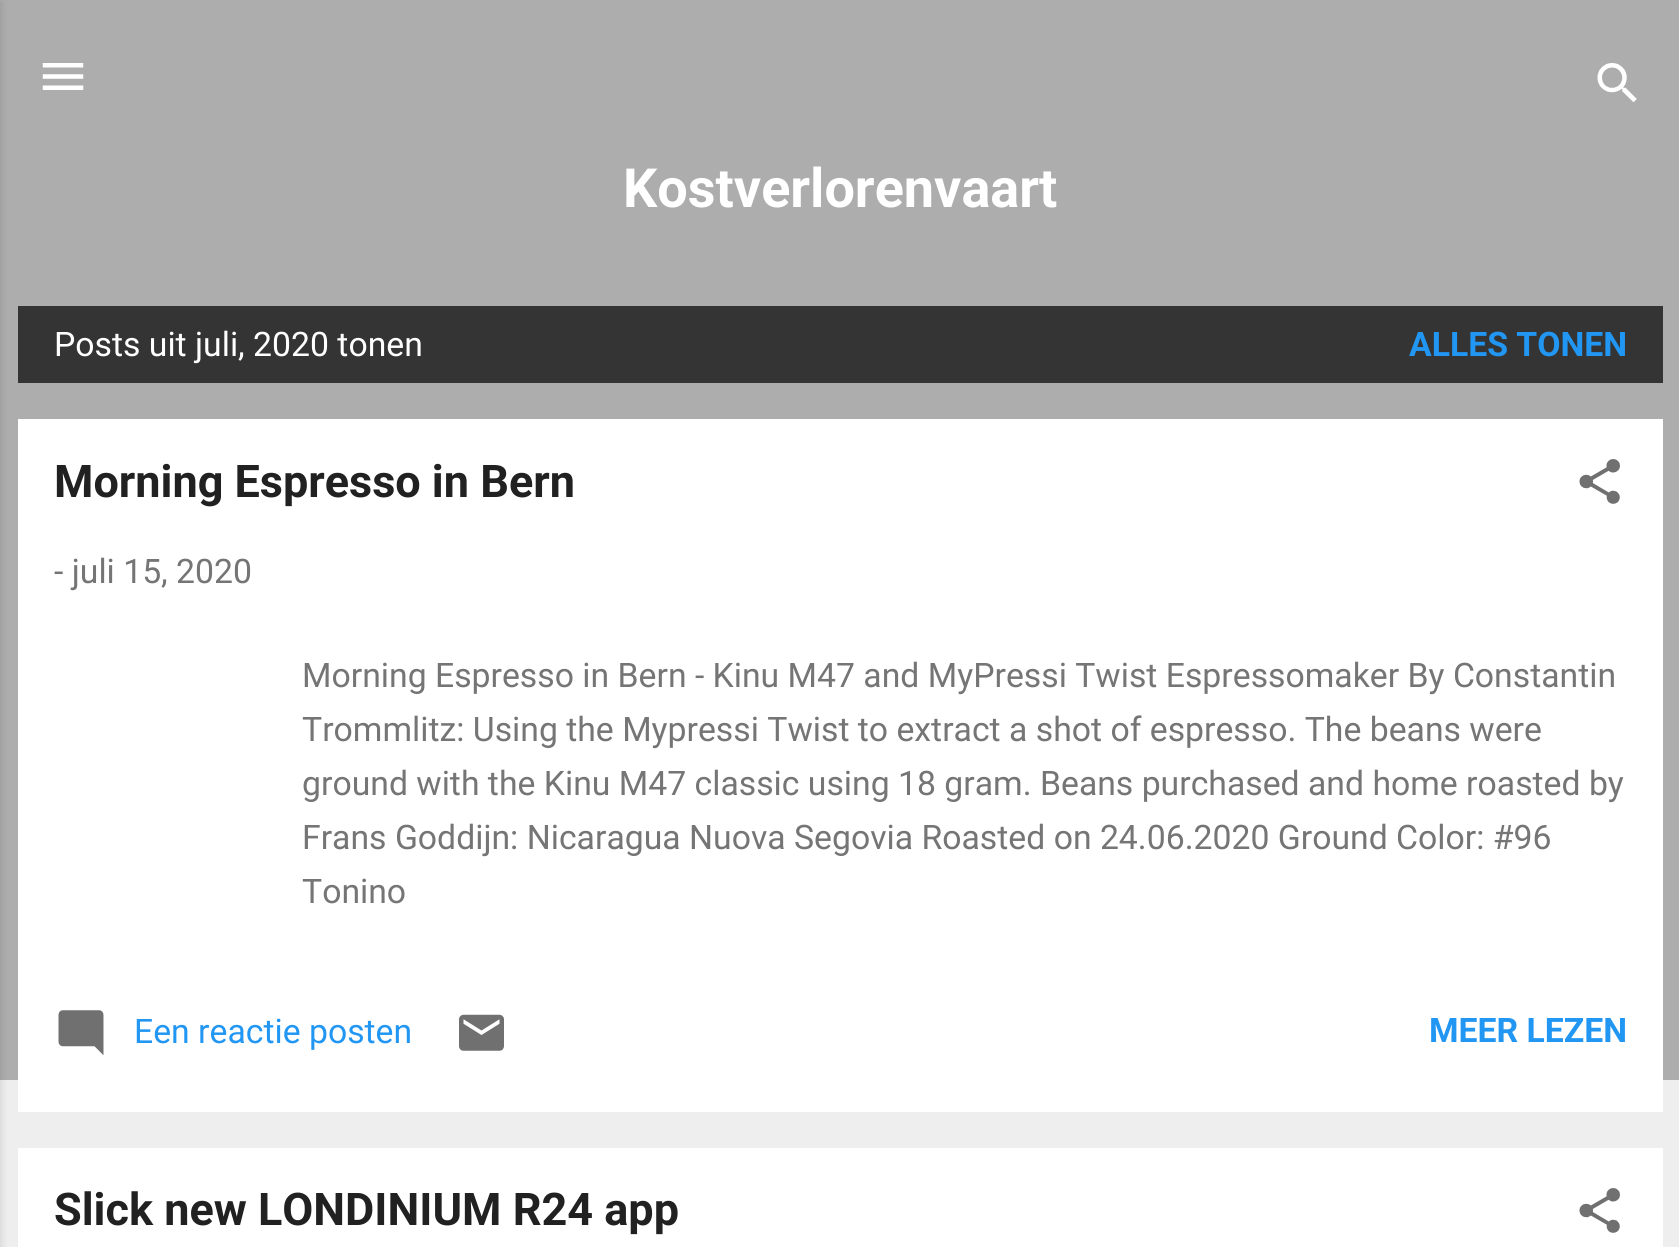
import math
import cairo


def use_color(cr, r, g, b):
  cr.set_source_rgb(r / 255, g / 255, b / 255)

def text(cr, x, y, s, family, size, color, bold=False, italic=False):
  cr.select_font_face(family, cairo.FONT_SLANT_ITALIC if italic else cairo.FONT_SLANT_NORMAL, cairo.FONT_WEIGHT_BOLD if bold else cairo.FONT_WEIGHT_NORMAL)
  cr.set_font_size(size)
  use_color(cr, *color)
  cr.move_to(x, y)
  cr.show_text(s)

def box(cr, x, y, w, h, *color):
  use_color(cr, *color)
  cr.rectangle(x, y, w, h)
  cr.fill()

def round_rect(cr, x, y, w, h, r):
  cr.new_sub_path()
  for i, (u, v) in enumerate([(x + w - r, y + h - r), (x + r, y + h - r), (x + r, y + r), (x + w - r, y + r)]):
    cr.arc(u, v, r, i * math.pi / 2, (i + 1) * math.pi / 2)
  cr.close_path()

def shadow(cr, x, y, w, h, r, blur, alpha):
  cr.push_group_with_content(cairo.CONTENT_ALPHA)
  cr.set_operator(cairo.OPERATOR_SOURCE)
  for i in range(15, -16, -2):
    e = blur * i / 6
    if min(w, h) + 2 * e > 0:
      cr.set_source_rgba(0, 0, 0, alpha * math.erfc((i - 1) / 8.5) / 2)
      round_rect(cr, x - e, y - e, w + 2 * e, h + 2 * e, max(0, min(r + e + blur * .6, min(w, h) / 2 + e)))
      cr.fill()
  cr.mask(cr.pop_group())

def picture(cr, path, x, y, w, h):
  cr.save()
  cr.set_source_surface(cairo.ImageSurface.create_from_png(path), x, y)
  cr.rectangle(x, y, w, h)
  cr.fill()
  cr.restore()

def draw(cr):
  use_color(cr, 238, 238, 238)
  cr.paint()
  box(cr, 0, 0, 1679, 1080, 173, 173, 173)
  use_color(cr, 0, 0, 0)
  shadow(cr, -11, 2, 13, 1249, 0, 3.5, 0.1)
  picture(cr, "img_01.png", 42, 63, 42, 27)
  picture(cr, "img_02.png", 1597, 63, 40, 40)
  box(cr, 18, 306, 1645, 77, 52, 52, 52)
  box(cr, 18, 419, 1645, 693, 255, 255, 255)
  picture(cr, "img_03.png", 1579, 459, 41, 45)
  picture(cr, "img_04.png", 58, 1010, 46, 45)
  picture(cr, "img_05.png", 459, 1014, 45, 37)
  box(cr, 18, 1148, 1645, 99, 255, 255, 255)
  picture(cr, "img_03.png", 1579, 1188, 41, 45)
  text(cr, 623, 207, "Kostverlorenvaart", "Roboto", 54, (255, 255, 255), bold=True)
  text(cr, 54, 356, "Posts uit juli, 2020 tonen", "Roboto", 33.75, (255, 255, 255))
  text(cr, 1409, 356, "ALLES TONEN", "Roboto", 33.75, (33, 150, 243), bold=True)
  text(cr, 54, 497, "Morning Espresso in Bern", "Roboto", 45, (33, 33, 33), bold=True)
  text(cr, 54, 583, "- juli 15, 2020", "Roboto", 33.75, (117, 117, 117))
  text(cr, 302, 687, "Morning Espresso in Bern - Kinu M47 and MyPressi Twist Espressomaker By Constantin", "Roboto", 33.75, (117, 117, 117))
  text(cr, 302, 741, "Trommlitz: Using the Mypressi Twist to extract a shot of espresso. The beans were", "Roboto", 33.75, (117, 117, 117))
  text(cr, 302, 795, "ground with the Kinu M47 classic using 18 gram. Beans purchased and home roasted by", "Roboto", 33.75, (117, 117, 117))
  text(cr, 302, 849, "Frans Goddijn: Nicaragua Nuova Segovia Roasted on 24.06.2020 Ground Color: #96", "Roboto", 33.75, (117, 117, 117))
  text(cr, 302, 903, "Tonino", "Roboto", 33.75, (117, 117, 117))
  text(cr, 134, 1043, "Een reactie posten", "Roboto", 33.75, (33, 150, 243))
  text(cr, 1429, 1042, "MEER LEZEN", "Roboto", 33.75, (33, 150, 243), bold=True)
  text(cr, 54, 1225, "Slick new LONDINIUM R24 app", "Roboto", 45, (33, 33, 33), bold=True)


surface = cairo.ImageSurface(cairo.FORMAT_RGB24, 1679, 1247)
cr = cairo.Context(surface)
options = cairo.FontOptions()
options.set_hint_metrics(cairo.HINT_METRICS_OFF)
options.set_hint_style(cairo.HINT_STYLE_NONE)
cr.set_font_options(options)
cr.set_miter_limit(4)
draw(cr)
surface.write_to_png("out.png")
